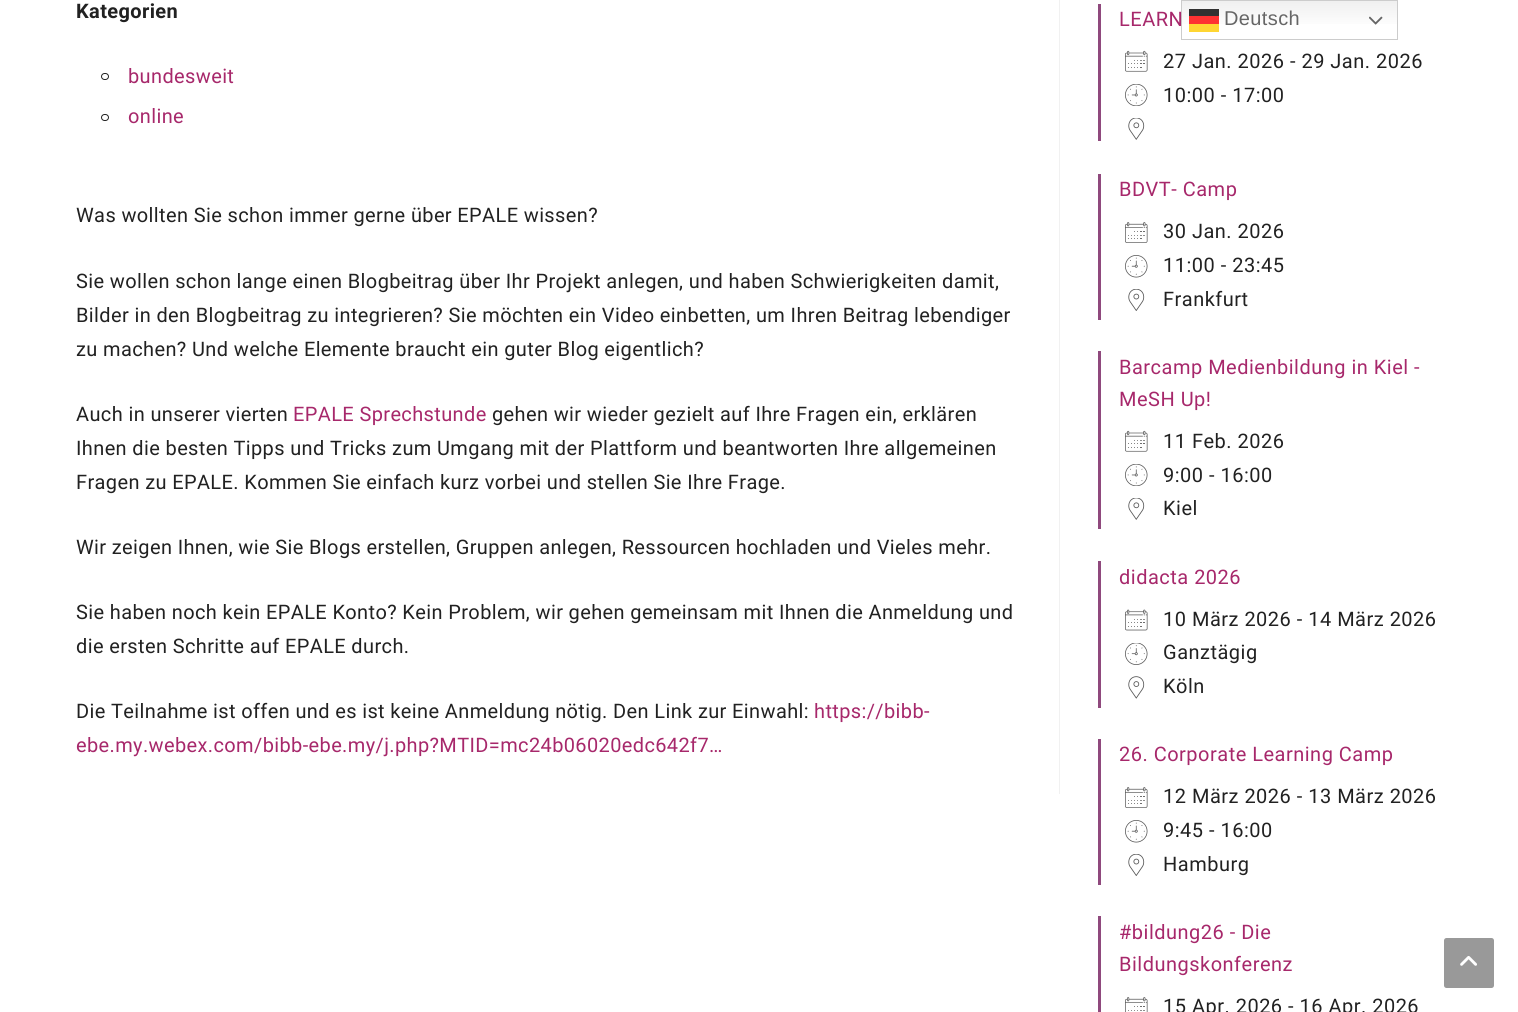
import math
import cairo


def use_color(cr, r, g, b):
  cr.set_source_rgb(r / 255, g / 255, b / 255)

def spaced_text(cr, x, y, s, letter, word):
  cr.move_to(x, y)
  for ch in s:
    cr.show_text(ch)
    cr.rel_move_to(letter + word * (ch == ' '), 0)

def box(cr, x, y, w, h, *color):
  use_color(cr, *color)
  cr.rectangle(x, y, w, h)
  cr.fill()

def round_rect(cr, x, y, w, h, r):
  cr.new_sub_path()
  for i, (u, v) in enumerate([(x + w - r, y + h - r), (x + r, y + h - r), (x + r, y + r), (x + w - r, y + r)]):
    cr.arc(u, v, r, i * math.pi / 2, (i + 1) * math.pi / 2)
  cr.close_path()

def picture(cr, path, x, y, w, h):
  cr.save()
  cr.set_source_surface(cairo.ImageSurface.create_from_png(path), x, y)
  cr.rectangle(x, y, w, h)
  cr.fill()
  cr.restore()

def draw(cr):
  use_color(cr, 255, 255, 255)
  cr.paint()
  box(cr, 1059, 0, 1, 794, 241, 241, 241)
  round_rect(cr, 101.5, 73.5, 7, 6, 3)
  use_color(cr, 33, 33, 33)
  cr.set_line_width(1)
  cr.stroke()
  round_rect(cr, 101.5, 114.5, 7, 6, 3)
  cr.stroke()
  box(cr, 1098, 4, 3, 137, 143, 73, 125)
  picture(cr, "img_01.png", 1125, 50, 23, 22)
  picture(cr, "img_02.png", 1125, 84, 23, 22)
  picture(cr, "img_03.png", 1128, 118, 17, 22)
  box(cr, 1098, 174, 3, 146, 143, 73, 125)
  picture(cr, "img_04.png", 1125, 222, 23, 21)
  picture(cr, "img_05.png", 1125, 255, 23, 23)
  picture(cr, "img_06.png", 1128, 289, 17, 22)
  box(cr, 1098, 351, 3, 178, 143, 73, 125)
  picture(cr, "img_01.png", 1125, 430, 23, 22)
  picture(cr, "img_02.png", 1125, 464, 23, 22)
  picture(cr, "img_03.png", 1128, 498, 17, 22)
  box(cr, 1098, 561, 3, 147, 143, 73, 125)
  picture(cr, "img_07.png", 1125, 609, 23, 22)
  picture(cr, "img_08.png", 1125, 643, 23, 22)
  picture(cr, "img_09.png", 1128, 676, 17, 23)
  box(cr, 1098, 739, 3, 146, 143, 73, 125)
  picture(cr, "img_04.png", 1125, 787, 23, 21)
  picture(cr, "img_05.png", 1125, 820, 23, 23)
  picture(cr, "img_06.png", 1128, 854, 17, 22)
  box(cr, 1098, 916, 3, 96, 143, 73, 125)
  picture(cr, "img_10.png", 1125, 997, 23, 15)
  gradient = cairo.LinearGradient(1289, 0, 1289, 40)
  gradient.add_color_stop_rgba(0, 0.937, 0.937, 0.937, 1)
  gradient.add_color_stop_rgba(0.7, 1, 1, 1, 1)
  cr.set_source(gradient)
  cr.rectangle(1182, 1, 215, 23)
  cr.fill()
  cr.rectangle(1181.5, 0.5, 216, 39)
  use_color(cr, 204, 204, 204)
  cr.stroke()
  cr.set_source_rgba(0, 0, 0, 0.8)
  cr.rectangle(1189, 9, 30, 7)
  cr.fill()
  cr.set_source_rgba(1, 0, 0, 0.8)
  cr.rectangle(1189, 16, 30, 8)
  cr.fill()
  picture(cr, "img_11.png", 1369, 16, 14, 9)
  box(cr, 1189, 24, 30, 8, 255, 214, 51)
  use_color(cr, 153, 153, 153)
  round_rect(cr, 1444, 938, 50, 50, 2.5)
  cr.fill()
  picture(cr, "img_12.png", 1460, 956, 17, 10)
  cr.select_font_face("Roboto", cairo.FONT_SLANT_NORMAL, cairo.FONT_WEIGHT_BOLD)
  cr.set_font_size(20)
  use_color(cr, 33, 33, 33)
  spaced_text(cr, 76, 18, "Kategorien", 0.38, 0)
  cr.select_font_face("Roboto")
  use_color(cr, 167, 40, 107)
  spaced_text(cr, 128, 83, "bundesweit", 0.38, 0)
  spaced_text(cr, 128, 123, "online", 0.38, 0)
  use_color(cr, 33, 33, 33)
  spaced_text(cr, 76, 222, "Was wollten Sie schon immer gerne über EPALE wissen?", 0.38, 0)
  spaced_text(cr, 76, 288, "Sie wollen schon lange einen Blogbeitrag über Ihr Projekt anlegen, und haben Schwierigkeiten damit,", 0.38, 0)
  spaced_text(cr, 76, 322, "Bilder in den Blogbeitrag zu integrieren? Sie möchten ein Video einbetten, um Ihren Beitrag lebendiger", 0.38, 0)
  spaced_text(cr, 76, 356, "zu machen? Und welche Elemente braucht ein guter Blog eigentlich?", 0.38, 0)
  spaced_text(cr, 76, 421, "Auch in unserer vierten", 0.38, 0)
  use_color(cr, 167, 40, 107)
  spaced_text(cr, 293, 421, "EPALE Sprechstunde", 0.38, 0)
  use_color(cr, 33, 33, 33)
  spaced_text(cr, 492, 421, "gehen wir wieder gezielt auf Ihre Fragen ein, erklären", 0.38, 0)
  spaced_text(cr, 76, 455, "Ihnen die besten Tipps und Tricks zum Umgang mit der Plattform und beantworten Ihre allgemeinen", 0.38, 0)
  spaced_text(cr, 76, 489, "Fragen zu EPALE. Kommen Sie einfach kurz vorbei und stellen Sie Ihre Frage.", 0.38, 0)
  spaced_text(cr, 76, 554, "Wir zeigen Ihnen, wie Sie Blogs erstellen, Gruppen anlegen, Ressourcen hochladen und Vieles mehr.", 0.38, 0)
  spaced_text(cr, 76, 619, "Sie haben noch kein EPALE Konto? Kein Problem, wir gehen gemeinsam mit Ihnen die Anmeldung und", 0.38, 0)
  spaced_text(cr, 76, 653, "die ersten Schritte auf EPALE durch.", 0.38, 0)
  spaced_text(cr, 76, 718, "Die Teilnahme ist offen und es ist keine Anmeldung nötig. Den Link zur Einwahl:", 0.38, 0)
  use_color(cr, 167, 40, 107)
  spaced_text(cr, 814, 718, "https://bibb-", 0.38, 0)
  spaced_text(cr, 76, 752, "ebe.my.webex.com/bibb-ebe.my/j.php?MTID=mc24b06020edc642f7…", 0.38, 0)
  spaced_text(cr, 1119, 26, "LEARN", 0.5, 0)
  use_color(cr, 33, 33, 33)
  spaced_text(cr, 1163, 68, "27 Jan. 2026 - 29 Jan. 2026", 0.5, 0)
  spaced_text(cr, 1163, 102, "10:00 - 17:00", 0.5, 0)
  use_color(cr, 167, 40, 107)
  spaced_text(cr, 1119, 196, "BDVT- Camp", 0.5, 0)
  use_color(cr, 33, 33, 33)
  spaced_text(cr, 1163, 238, "30 Jan. 2026", 0.5, 0)
  spaced_text(cr, 1163, 272, "11:00 - 23:45", 0.5, 0)
  spaced_text(cr, 1163, 306, "Frankfurt", 0.5, 0)
  use_color(cr, 167, 40, 107)
  spaced_text(cr, 1119, 374, "Barcamp Medienbildung in Kiel -", 0.5, 0)
  spaced_text(cr, 1119, 406, "MeSH Up!", 0.5, 0)
  use_color(cr, 33, 33, 33)
  spaced_text(cr, 1163, 448, "11 Feb. 2026", 0.5, 0)
  spaced_text(cr, 1163, 482, "9:00 - 16:00", 0.5, 0)
  spaced_text(cr, 1163, 515, "Kiel", 0.5, 0)
  use_color(cr, 167, 40, 107)
  spaced_text(cr, 1119, 584, "didacta 2026", 0.5, 0)
  use_color(cr, 33, 33, 33)
  spaced_text(cr, 1163, 626, "10 März 2026 - 14 März 2026", 0.5, 0)
  spaced_text(cr, 1163, 659, "Ganztägig", 0.5, 0)
  spaced_text(cr, 1163, 693, "Köln", 0.5, 0)
  use_color(cr, 167, 40, 107)
  spaced_text(cr, 1119, 761, "26. Corporate Learning Camp", 0.5, 0)
  use_color(cr, 33, 33, 33)
  spaced_text(cr, 1163, 803, "12 März 2026 - 13 März 2026", 0.5, 0)
  spaced_text(cr, 1163, 837, "9:45 - 16:00", 0.5, 0)
  spaced_text(cr, 1163, 871, "Hamburg", 0.5, 0)
  use_color(cr, 167, 40, 107)
  spaced_text(cr, 1119, 939, "#bildung26 - Die", 0.5, 0)
  spaced_text(cr, 1119, 971, "Bildungskonferenz", 0.5, 0)
  use_color(cr, 33, 33, 33)
  spaced_text(cr, 1163, 1013, "15 Apr. 2026 - 16 Apr. 2026", 0.5, 0)
  cr.select_font_face("Liberation Sans")
  use_color(cr, 102, 102, 102)
  spaced_text(cr, 1224, 25, "Deutsch", 0.38, 0)


surface = cairo.ImageSurface(cairo.FORMAT_RGB24, 1518, 1012)
cr = cairo.Context(surface)
options = cairo.FontOptions()
options.set_hint_metrics(cairo.HINT_METRICS_OFF)
options.set_hint_style(cairo.HINT_STYLE_NONE)
cr.set_font_options(options)
cr.set_miter_limit(4)
draw(cr)
surface.write_to_png("out.png")
